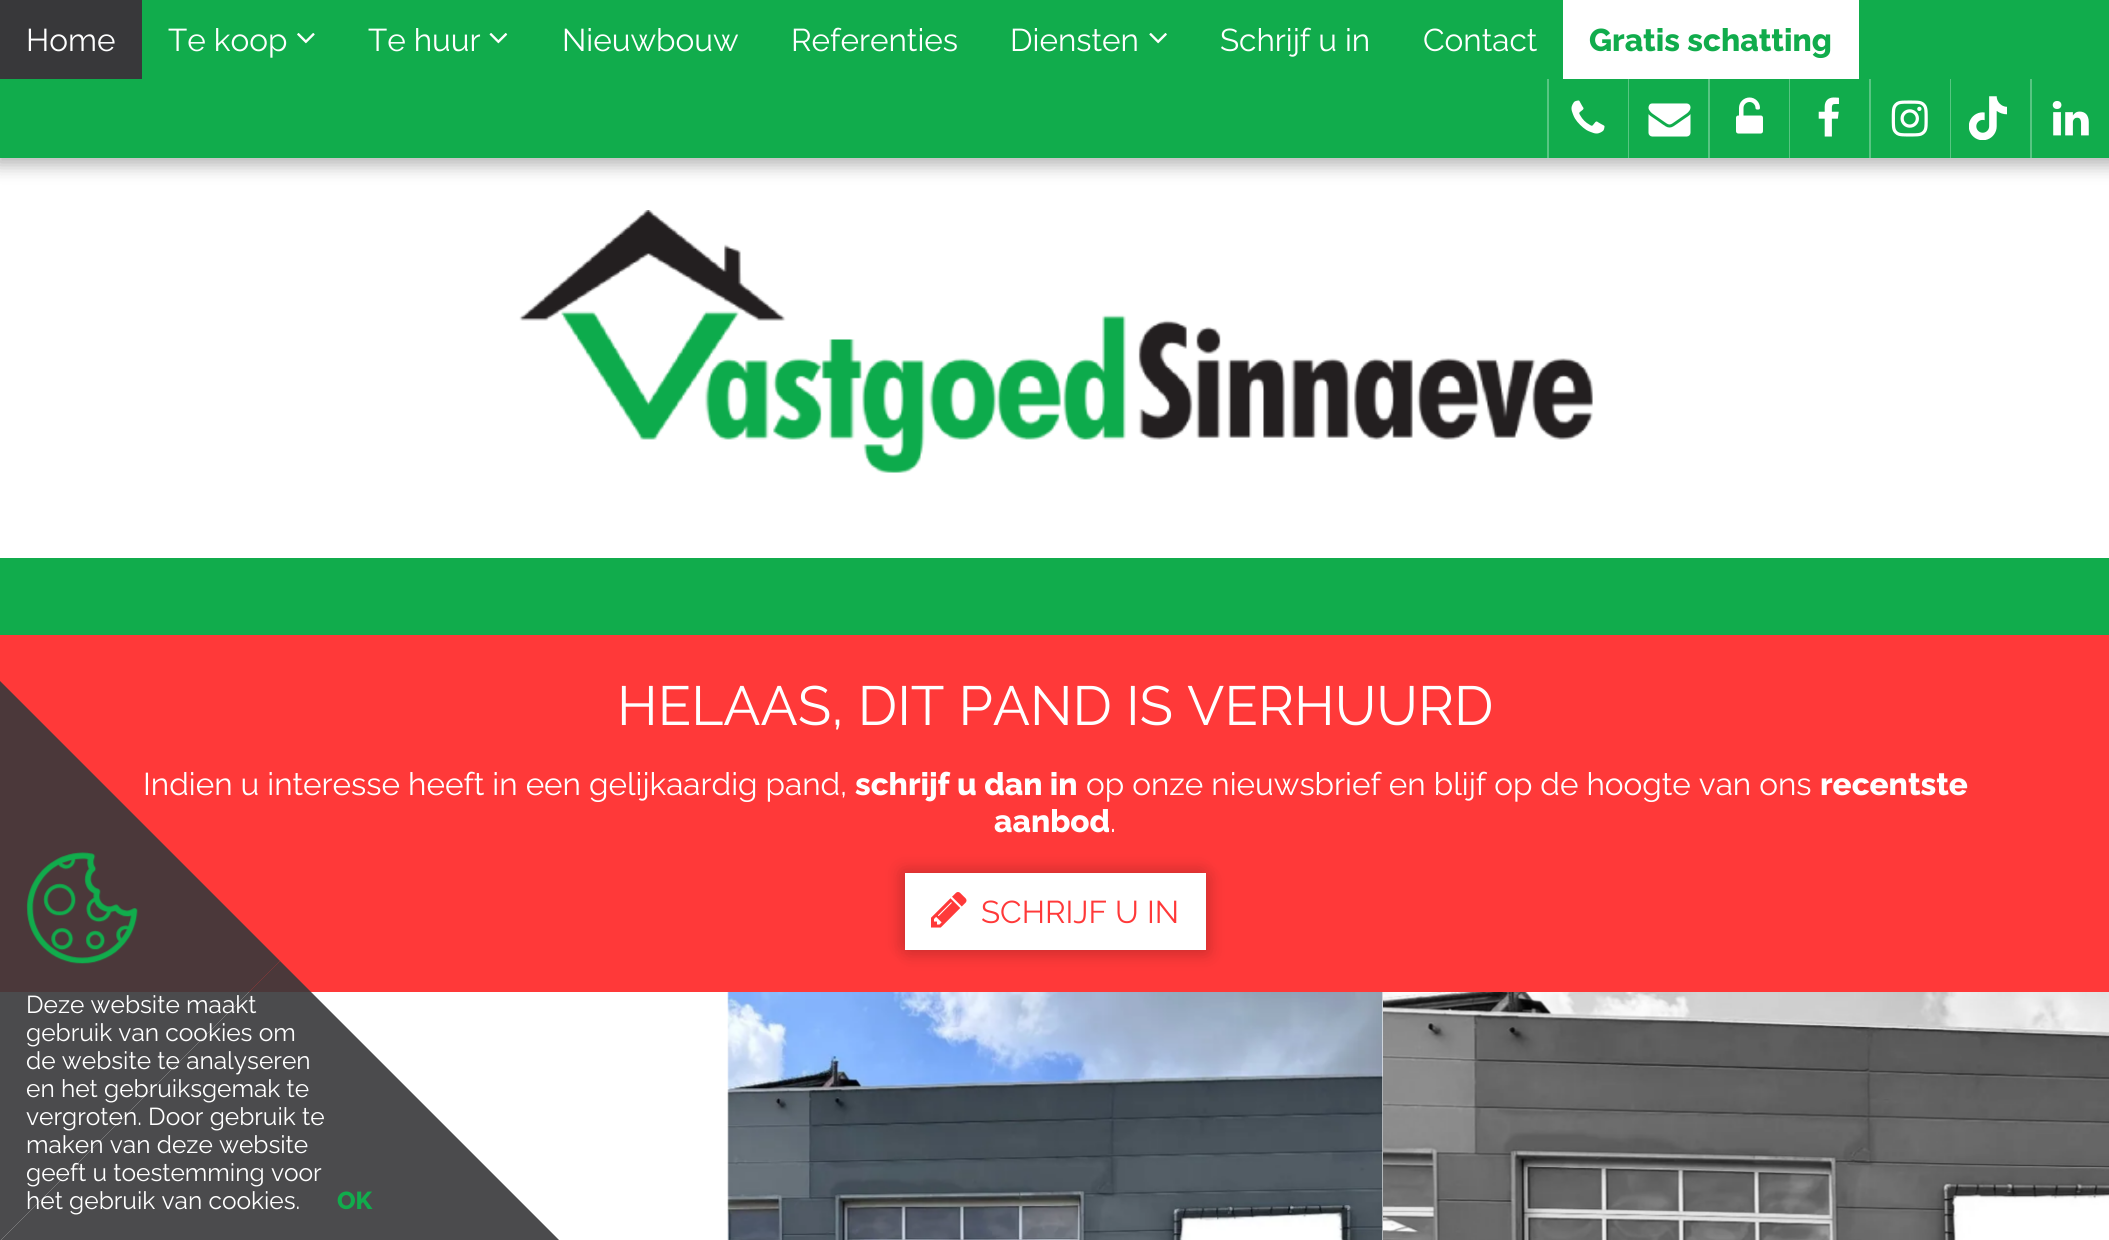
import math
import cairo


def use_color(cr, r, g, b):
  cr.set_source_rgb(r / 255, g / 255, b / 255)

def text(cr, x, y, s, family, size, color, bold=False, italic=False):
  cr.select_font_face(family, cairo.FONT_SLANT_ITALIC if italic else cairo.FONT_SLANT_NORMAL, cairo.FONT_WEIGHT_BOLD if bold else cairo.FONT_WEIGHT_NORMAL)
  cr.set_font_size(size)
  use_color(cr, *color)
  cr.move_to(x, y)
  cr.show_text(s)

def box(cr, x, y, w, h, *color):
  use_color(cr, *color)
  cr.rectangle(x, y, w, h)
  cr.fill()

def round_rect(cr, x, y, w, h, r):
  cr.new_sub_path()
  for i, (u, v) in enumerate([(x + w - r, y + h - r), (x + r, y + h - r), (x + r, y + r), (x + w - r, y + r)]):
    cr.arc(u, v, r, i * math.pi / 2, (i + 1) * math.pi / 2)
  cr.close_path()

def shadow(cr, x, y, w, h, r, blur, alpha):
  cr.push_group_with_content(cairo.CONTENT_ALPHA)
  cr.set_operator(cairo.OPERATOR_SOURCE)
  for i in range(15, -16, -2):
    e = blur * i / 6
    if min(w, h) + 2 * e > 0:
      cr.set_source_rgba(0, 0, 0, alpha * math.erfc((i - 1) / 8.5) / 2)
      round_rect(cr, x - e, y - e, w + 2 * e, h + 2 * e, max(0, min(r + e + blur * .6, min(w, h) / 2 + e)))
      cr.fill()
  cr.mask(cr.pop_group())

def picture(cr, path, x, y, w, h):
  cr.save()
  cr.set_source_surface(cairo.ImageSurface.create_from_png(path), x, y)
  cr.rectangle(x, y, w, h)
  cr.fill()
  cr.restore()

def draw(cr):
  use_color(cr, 255, 255, 255)
  cr.paint()
  use_color(cr, 0, 0, 0)
  shadow(cr, -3, 0, 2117, 165, 0, 9, 0.3)
  box(cr, 0, 0, 2109, 158, 17, 172, 76)
  box(cr, 0, 0, 142, 79, 56, 56, 58)
  picture(cr, "img_01.png", 297, 33, 18, 11)
  picture(cr, "img_02.png", 489, 33, 19, 11)
  picture(cr, "img_03.png", 1149, 33, 18, 11)
  box(cr, 1563, 0, 296, 79, 255, 255, 255)
  box(cr, 1547, 79, 2, 79, 88, 197, 130)
  picture(cr, "img_04.png", 1571, 100, 34, 34)
  box(cr, 1628, 79, 1, 79, 88, 197, 130)
  picture(cr, "img_05.png", 1648, 103, 43, 34)
  box(cr, 1708, 79, 2, 79, 88, 197, 130)
  picture(cr, "img_06.png", 1736, 97, 27, 37)
  box(cr, 1789, 79, 1, 79, 88, 197, 130)
  picture(cr, "img_07.png", 1818, 97, 21, 40)
  box(cr, 1869, 79, 2, 79, 88, 197, 130)
  picture(cr, "img_08.png", 1891, 100, 37, 37)
  box(cr, 1950, 79, 1, 79, 88, 197, 130)
  picture(cr, "img_09.png", 1969, 96, 38, 44)
  box(cr, 2030, 79, 2, 79, 88, 197, 130)
  picture(cr, "img_10.png", 2052, 101, 37, 35)
  picture(cr, "img_11.png", 519, 210, 1074, 263)
  box(cr, 0, 558, 2109, 77, 17, 172, 76)
  box(cr, 0, 635, 2109, 357, 255, 57, 57)
  use_color(cr, 0, 0, 0)
  shadow(cr, 901, 870, 301, 77, 0, 9, 0.15)
  shadow(cr, 908, 877, 301, 77, 0, 9, 0.15)
  box(cr, 905, 873, 301, 77, 255, 255, 255)
  picture(cr, "img_12.png", 931, 892, 36, 36)
  picture(cr, "img_13.png", 727, 992, 656, 248)
  picture(cr, "img_14.png", 1383, 992, 726, 248)
  cr.set_source_rgba(0.22, 0.22, 0.227, 0.9)
  cr.new_path()
  cr.move_to(560, 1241)
  cr.line_to(0, 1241)
  cr.line_to(280, 961)
  cr.close_path()
  cr.fill()
  text(cr, 26, 51, "Home", "Raleway", 31.5, (255, 255, 255))
  text(cr, 168, 51, "Te koop", "Raleway", 31.5, (255, 255, 255))
  text(cr, 368, 51, "Te huur", "Raleway", 31.5, (255, 255, 255))
  text(cr, 562, 51, "Nieuwbouw", "Raleway", 31.5, (255, 255, 255))
  text(cr, 791, 51, "Referenties", "Raleway", 31.5, (255, 255, 255))
  text(cr, 1010, 51, "Diensten", "Raleway", 31.5, (255, 255, 255))
  text(cr, 1220, 51, "Schrijf u in", "Raleway", 31.5, (255, 255, 255))
  text(cr, 1423, 51, "Contact", "Raleway", 31.5, (255, 255, 255))
  text(cr, 1589, 51, "Gratis schatting", "Raleway ExtraBold", 31.5, (17, 172, 76))
  text(cr, 617, 725, "HELAAS, DIT PAND IS VERHUURD", "Raleway", 55.1, (255, 255, 255))
  text(cr, 143, 795, "Indien u interesse heeft in een gelijkaardig pand,", "Raleway", 31.5, (255, 255, 255))
  text(cr, 855, 795, "schrijf u dan in", "Raleway ExtraBold", 31.5, (255, 255, 255))
  text(cr, 1086, 795, "op onze nieuwsbrief en blijf op de hoogte van ons", "Raleway", 31.5, (255, 255, 255))
  text(cr, 1820, 795, "recentste", "Raleway ExtraBold", 31.5, (255, 255, 255))
  text(cr, 994, 832, "aanbod", "Raleway ExtraBold", 31.5, (255, 255, 255))
  text(cr, 1110, 832, ".", "Raleway", 31.5, (255, 255, 255))
  text(cr, 981, 923, "SCHRIJF U IN", "Raleway", 31.5, (255, 57, 57))
  cr.set_source_rgba(0.22, 0.22, 0.227, 0.9)
  cr.new_path()
  cr.move_to(0, 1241)
  cr.line_to(0, 681)
  cr.line_to(280, 961)
  cr.close_path()
  cr.fill()
  picture(cr, "img_15.png", 26, 852, 112, 112)
  text(cr, 26, 1013, "Deze website maakt", "Raleway", 24.5, (255, 255, 255))
  text(cr, 26, 1041, "gebruik van cookies om", "Raleway", 24.5, (255, 255, 255))
  text(cr, 26, 1069, "de website te analyseren", "Raleway", 24.5, (255, 255, 255))
  text(cr, 26, 1097, "en het gebruiksgemak te", "Raleway", 24.5, (255, 255, 255))
  text(cr, 26, 1125, "vergroten. Door gebruik te", "Raleway", 24.5, (255, 255, 255))
  text(cr, 26, 1153, "maken van deze website", "Raleway", 24.5, (255, 255, 255))
  text(cr, 26, 1181, "geeft u toestemming voor", "Raleway", 24.5, (255, 255, 255))
  text(cr, 26, 1209, "het gebruik van cookies.", "Raleway", 24.5, (255, 255, 255))
  text(cr, 337, 1209, "OK", "Raleway ExtraBold", 24.5, (17, 172, 76))


surface = cairo.ImageSurface(cairo.FORMAT_RGB24, 2109, 1240)
cr = cairo.Context(surface)
options = cairo.FontOptions()
options.set_hint_metrics(cairo.HINT_METRICS_OFF)
options.set_hint_style(cairo.HINT_STYLE_NONE)
cr.set_font_options(options)
cr.set_miter_limit(4)
draw(cr)
surface.write_to_png("out.png")
